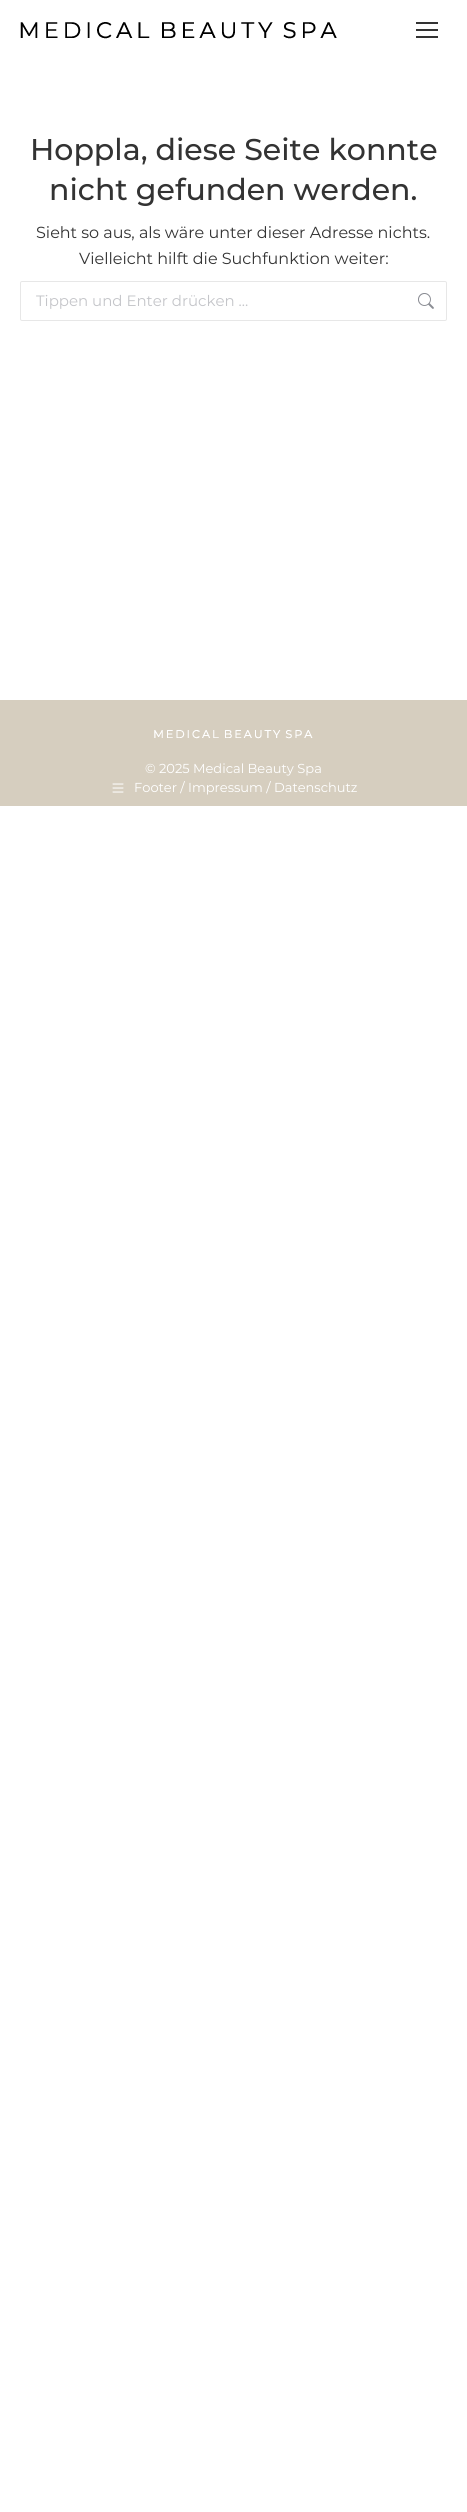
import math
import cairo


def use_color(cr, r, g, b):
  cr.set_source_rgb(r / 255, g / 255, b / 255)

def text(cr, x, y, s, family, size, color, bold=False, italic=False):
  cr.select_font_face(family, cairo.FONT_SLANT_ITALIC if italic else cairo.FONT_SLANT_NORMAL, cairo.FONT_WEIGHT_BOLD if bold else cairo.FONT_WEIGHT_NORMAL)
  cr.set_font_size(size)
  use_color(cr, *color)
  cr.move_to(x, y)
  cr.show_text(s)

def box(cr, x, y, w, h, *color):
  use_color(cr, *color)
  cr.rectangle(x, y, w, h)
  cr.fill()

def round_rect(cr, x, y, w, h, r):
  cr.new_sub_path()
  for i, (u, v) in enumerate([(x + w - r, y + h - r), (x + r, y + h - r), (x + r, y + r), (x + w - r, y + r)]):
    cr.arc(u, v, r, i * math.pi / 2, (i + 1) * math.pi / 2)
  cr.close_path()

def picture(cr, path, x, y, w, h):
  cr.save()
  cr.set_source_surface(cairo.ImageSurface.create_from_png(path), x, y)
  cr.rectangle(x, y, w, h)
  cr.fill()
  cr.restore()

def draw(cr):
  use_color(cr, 255, 255, 255)
  cr.paint()
  picture(cr, "img_01.png", 20, 22, 317, 17)
  box(cr, 416, 22, 22, 2, 51, 51, 51)
  box(cr, 416, 29, 22, 2, 51, 51, 51)
  box(cr, 416, 36, 22, 2, 51, 51, 51)
  round_rect(cr, 20.5, 281.5, 426, 39, 1.5)
  use_color(cr, 231, 231, 231)
  cr.set_line_width(1)
  cr.stroke()
  picture(cr, "img_02.png", 418, 293, 16, 16)
  box(cr, 0, 700, 467, 106, 214, 206, 191)
  picture(cr, "img_03.png", 154, 730, 159, 9)
  picture(cr, "img_04.png", 112, 783, 12, 10)
  text(cr, 30, 160, "Hoppla, diese Seite konnte", "Montserrat Medium", 30, (51, 51, 51))
  text(cr, 49, 200, "nicht gefunden werden.", "Montserrat Medium", 30, (51, 51, 51))
  text(cr, 36, 238, "Sieht so aus, als wäre unter dieser Adresse nichts.", "Montserrat", 16, (51, 51, 51))
  text(cr, 79, 264, "Vielleicht hilft die Suchfunktion weiter:", "Montserrat", 16, (51, 51, 51))
  text(cr, 36, 306, "Tippen und Enter drücken …", "Montserrat", 15, (196, 197, 201))
  text(cr, 145, 773, "© 2025 Medical Beauty Spa", "Montserrat", 13, (255, 255, 255))
  text(cr, 134, 792, "Footer / Impressum / Datenschutz", "Montserrat", 13, (255, 255, 255))


surface = cairo.ImageSurface(cairo.FORMAT_RGB24, 467, 2512)
cr = cairo.Context(surface)
options = cairo.FontOptions()
options.set_hint_metrics(cairo.HINT_METRICS_OFF)
options.set_hint_style(cairo.HINT_STYLE_NONE)
cr.set_font_options(options)
cr.set_miter_limit(4)
draw(cr)
surface.write_to_png("out.png")
